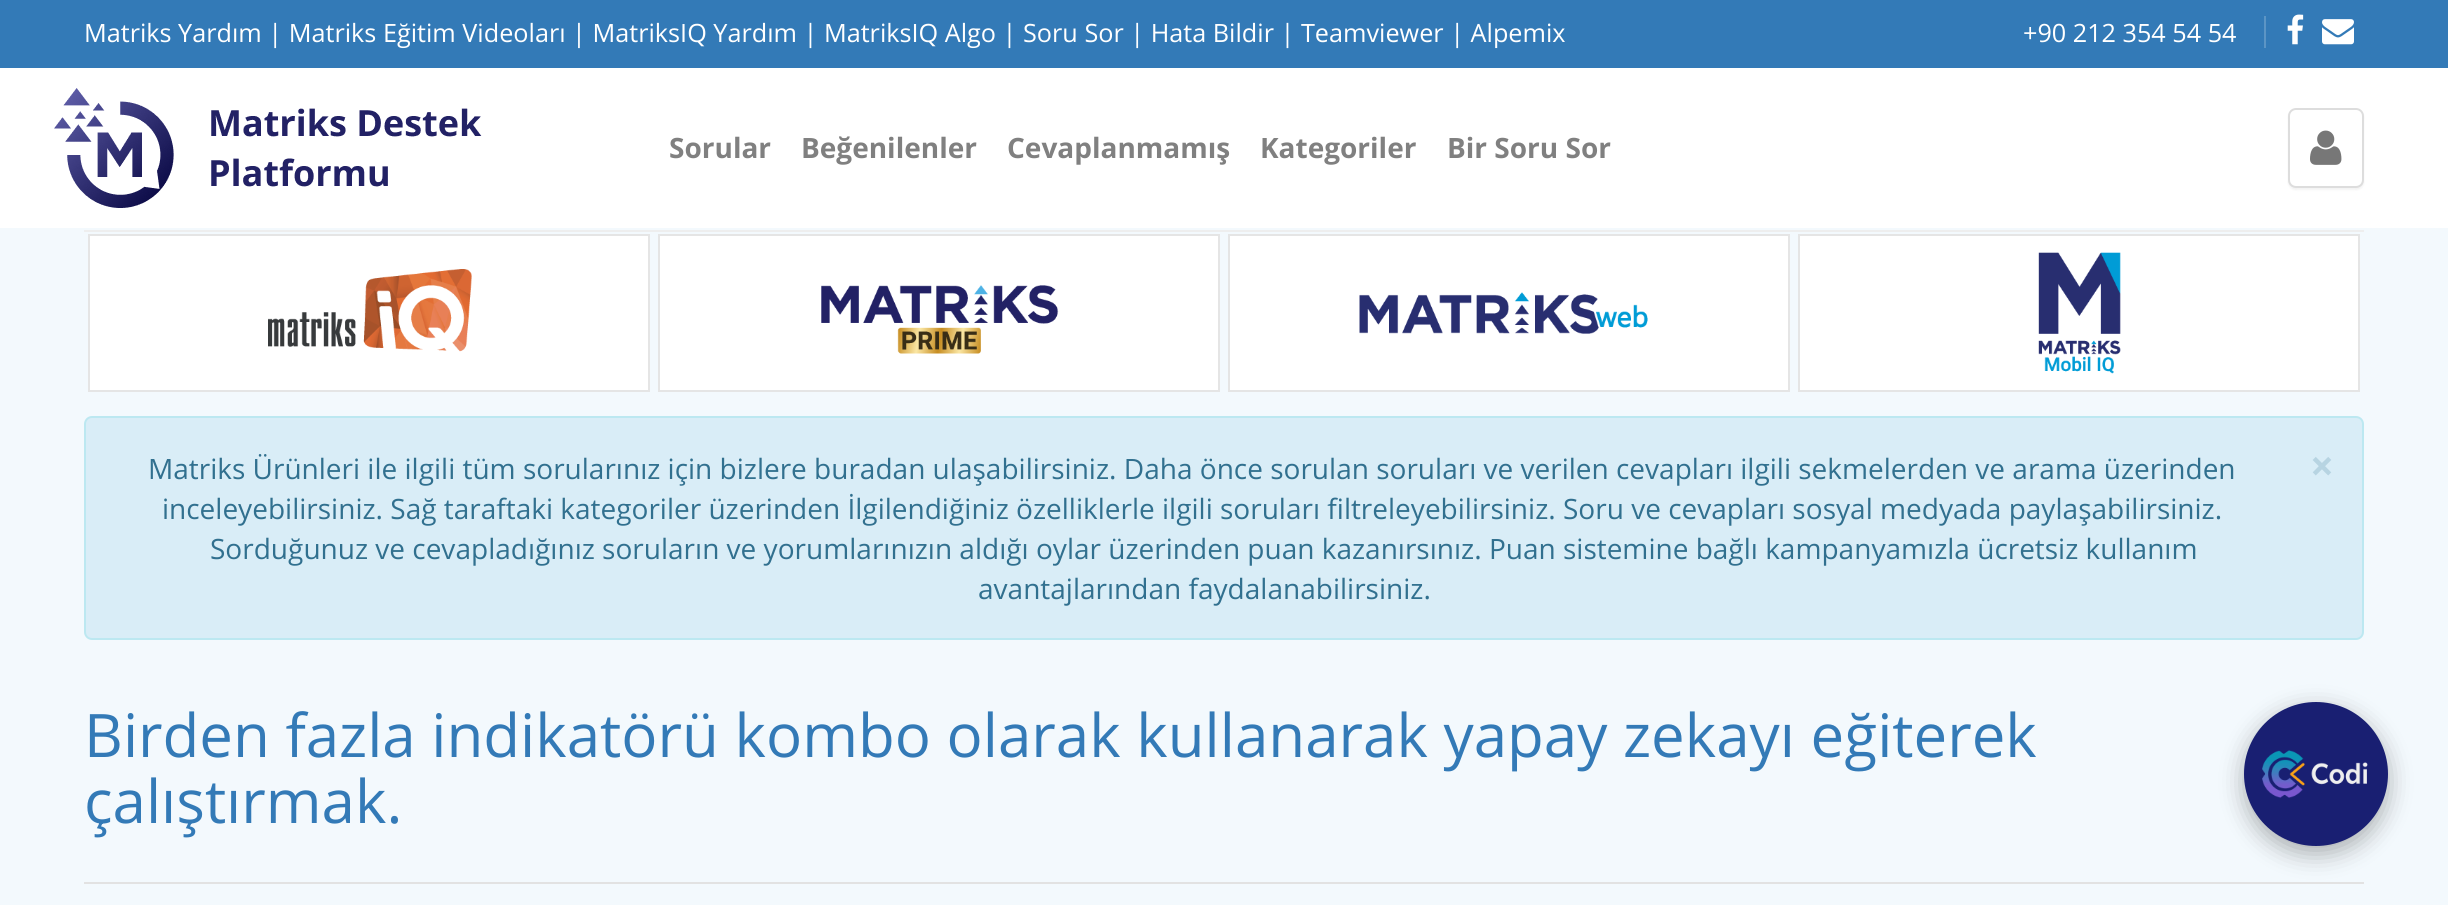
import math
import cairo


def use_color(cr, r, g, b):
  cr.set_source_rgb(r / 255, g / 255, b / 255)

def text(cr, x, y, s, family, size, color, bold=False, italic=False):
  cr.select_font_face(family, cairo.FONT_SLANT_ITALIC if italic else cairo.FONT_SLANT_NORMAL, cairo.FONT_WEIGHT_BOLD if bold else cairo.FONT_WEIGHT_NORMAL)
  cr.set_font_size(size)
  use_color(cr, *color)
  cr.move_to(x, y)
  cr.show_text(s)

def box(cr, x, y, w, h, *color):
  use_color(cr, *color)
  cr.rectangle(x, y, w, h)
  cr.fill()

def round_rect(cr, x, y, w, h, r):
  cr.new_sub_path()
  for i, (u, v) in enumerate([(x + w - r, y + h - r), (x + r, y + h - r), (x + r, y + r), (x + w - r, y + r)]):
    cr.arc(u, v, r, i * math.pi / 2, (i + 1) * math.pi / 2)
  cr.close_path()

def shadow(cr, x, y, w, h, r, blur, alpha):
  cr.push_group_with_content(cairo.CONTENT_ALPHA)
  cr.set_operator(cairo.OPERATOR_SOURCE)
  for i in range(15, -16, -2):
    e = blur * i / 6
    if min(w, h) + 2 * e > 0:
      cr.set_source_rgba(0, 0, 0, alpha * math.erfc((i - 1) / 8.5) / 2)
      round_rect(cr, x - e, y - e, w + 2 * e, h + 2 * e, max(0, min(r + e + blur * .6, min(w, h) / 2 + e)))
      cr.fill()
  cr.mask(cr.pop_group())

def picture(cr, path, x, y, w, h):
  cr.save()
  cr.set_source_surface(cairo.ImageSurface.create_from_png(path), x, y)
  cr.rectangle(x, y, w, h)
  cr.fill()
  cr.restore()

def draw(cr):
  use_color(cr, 243, 249, 253)
  cr.paint()
  box(cr, 0, 0, 2448, 68, 51, 122, 183)
  box(cr, 2264, 16, 2, 32, 92, 149, 197)
  picture(cr, "img_01.png", 2287, 14, 17, 31)
  picture(cr, "img_02.png", 2322, 19, 32, 26)
  box(cr, 0, 68, 2448, 160, 255, 255, 255)
  picture(cr, "img_03.png", 54, 88, 428, 120)
  use_color(cr, 0, 0, 0)
  shadow(cr, 2288, 110, 76, 80, 8, 1, 0.05)
  use_color(cr, 255, 255, 255)
  round_rect(cr, 2289, 109, 74, 78, 7)
  cr.fill_preserve()
  use_color(cr, 221, 221, 221)
  cr.stroke()
  picture(cr, "img_04.png", 2310, 130, 32, 35)
  box(cr, 84, 230, 2280, 2, 238, 238, 238)
  use_color(cr, 255, 255, 255)
  cr.rectangle(89, 235, 560, 156)
  cr.fill_preserve()
  use_color(cr, 229, 229, 229)
  cr.stroke()
  picture(cr, "img_05.png", 268, 269, 204, 83)
  use_color(cr, 255, 255, 255)
  cr.rectangle(659, 235, 560, 156)
  cr.fill_preserve()
  use_color(cr, 229, 229, 229)
  cr.stroke()
  picture(cr, "img_06.png", 821, 285, 238, 69)
  use_color(cr, 255, 255, 255)
  cr.rectangle(1229, 235, 560, 156)
  cr.fill_preserve()
  use_color(cr, 229, 229, 229)
  cr.stroke()
  picture(cr, "img_07.png", 1359, 292, 289, 42)
  use_color(cr, 255, 255, 255)
  cr.rectangle(1799, 235, 560, 156)
  cr.fill_preserve()
  use_color(cr, 229, 229, 229)
  cr.stroke()
  picture(cr, "img_08.png", 2038, 252, 83, 122)
  use_color(cr, 217, 237, 247)
  round_rect(cr, 85, 417, 2278, 222, 7)
  cr.fill_preserve()
  use_color(cr, 188, 232, 241)
  cr.stroke()
  box(cr, 84, 882, 2280, 2, 226, 226, 226)
  use_color(cr, 0, 0, 0)
  shadow(cr, 2244, 710, 144, 144, 72, 12, 0.3)
  use_color(cr, 25, 31, 114)
  cr.arc(2316, 774, 72, 0, 2 * math.pi)
  cr.fill()
  picture(cr, "img_09.png", 2262, 750, 106, 48)
  text(cr, 84, 42, "Matriks Yardım | Matriks Eğitim Videoları | MatriksIQ Yardım | MatriksIQ Algo | Soru Sor | Hata Bildir | Teamviewer | Alpemix", "Open Sans", 25.2, (255, 255, 255))
  text(cr, 2023, 42, "+90 212 354 54 54", "Open Sans", 25.2, (255, 255, 255))
  text(cr, 669, 158, "Sorular", "Open Sans", 28, (128, 128, 128), bold=True)
  text(cr, 801, 158, "Beğenilenler", "Open Sans", 28, (128, 128, 128), bold=True)
  text(cr, 1007, 158, "Cevaplanmamış", "Open Sans", 28, (128, 128, 128), bold=True)
  text(cr, 1260, 158, "Kategoriler", "Open Sans", 28, (128, 128, 128), bold=True)
  text(cr, 1447, 158, "Bir Soru Sor", "Open Sans", 28, (128, 128, 128), bold=True)
  text(cr, 148, 479, "Matriks Ürünleri ile ilgili tüm sorularınız için bizlere buradan ulaşabilirsiniz. Daha önce sorulan soruları ve verilen cevapları ilgili sekmelerden ve arama üzerinden", "Open Sans", 28, (49, 112, 143))
  text(cr, 2310, 481, "×", "Open Sans", 42, (183, 212, 226), bold=True)
  text(cr, 162, 519, "inceleyebilirsiniz. Sağ taraftaki kategoriler üzerinden İlgilendiğiniz özelliklerle ilgili soruları filtreleyebilirsiniz. Soru ve cevapları sosyal medyada paylaşabilirsiniz.", "Open Sans", 28, (49, 112, 143))
  text(cr, 210, 559, "Sorduğunuz ve cevapladığınız soruların ve yorumlarınızın aldığı oylar üzerinden puan kazanırsınız. Puan sistemine bağlı kampanyamızla ücretsiz kullanım", "Open Sans", 28, (49, 112, 143))
  text(cr, 978, 599, "avantajlarından faydalanabilirsiniz.", "Open Sans", 28, (49, 112, 143))
  text(cr, 84, 757, "Birden fazla indikatörü kombo olarak kullanarak yapay zekayı eğiterek", "Open Sans", 60, (51, 122, 183))
  text(cr, 84, 823, "çalıştırmak.", "Open Sans", 60, (51, 122, 183))


surface = cairo.ImageSurface(cairo.FORMAT_RGB24, 2448, 905)
cr = cairo.Context(surface)
options = cairo.FontOptions()
options.set_hint_metrics(cairo.HINT_METRICS_OFF)
options.set_hint_style(cairo.HINT_STYLE_NONE)
cr.set_font_options(options)
cr.set_miter_limit(4)
draw(cr)
surface.write_to_png("out.png")
